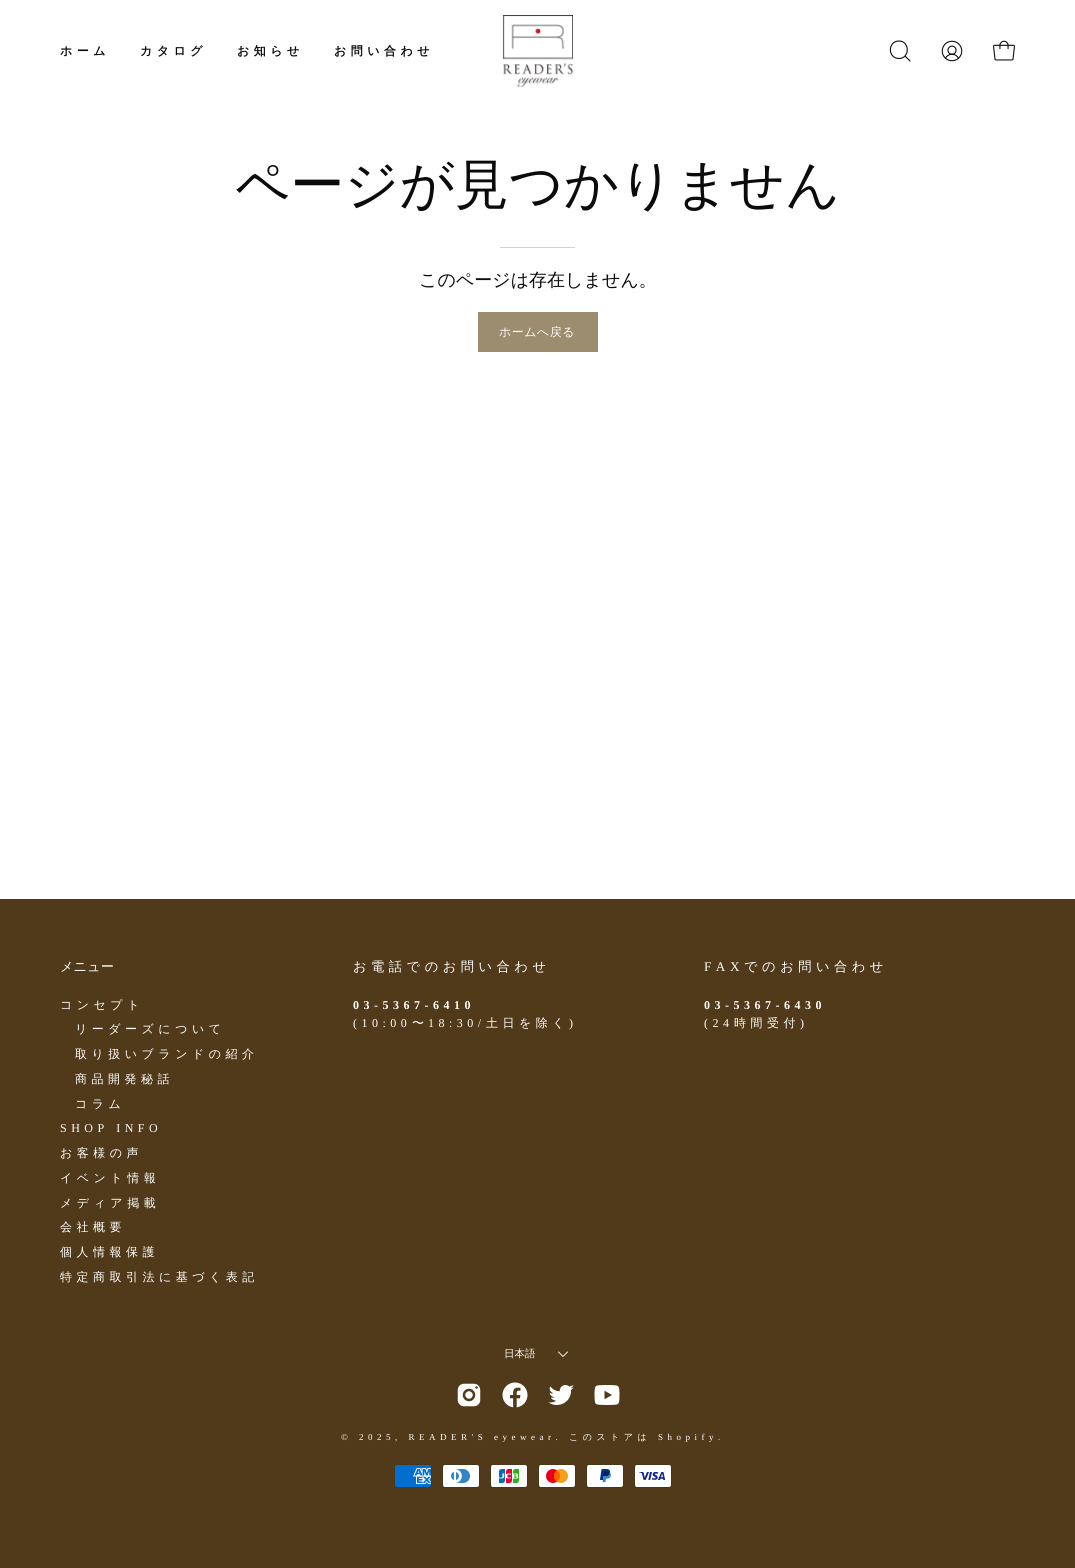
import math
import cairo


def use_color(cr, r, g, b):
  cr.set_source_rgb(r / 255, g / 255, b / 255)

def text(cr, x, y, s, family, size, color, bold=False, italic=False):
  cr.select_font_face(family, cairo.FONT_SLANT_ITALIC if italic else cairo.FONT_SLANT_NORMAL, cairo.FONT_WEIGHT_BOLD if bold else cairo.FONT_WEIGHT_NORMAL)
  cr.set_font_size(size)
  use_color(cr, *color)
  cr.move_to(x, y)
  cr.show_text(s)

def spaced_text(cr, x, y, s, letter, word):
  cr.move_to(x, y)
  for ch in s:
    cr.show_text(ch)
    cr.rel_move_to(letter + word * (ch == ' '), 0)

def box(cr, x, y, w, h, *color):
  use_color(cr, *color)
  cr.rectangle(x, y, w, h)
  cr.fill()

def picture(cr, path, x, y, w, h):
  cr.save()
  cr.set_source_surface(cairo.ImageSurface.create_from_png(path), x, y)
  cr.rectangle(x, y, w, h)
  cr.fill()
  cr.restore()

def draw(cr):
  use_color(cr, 255, 255, 255)
  cr.paint()
  cr.new_path()
  cr.move_to(899, 58.5)
  cr.curve_to(910, 58.5, 910, 41, 899, 41)
  cr.curve_to(887.5, 41, 887.5, 58.5, 899, 58.5)
  cr.close_path()
  cr.move_to(905, 56)
  cr.line_to(910, 61)
  use_color(cr, 11, 11, 11)
  cr.set_line_width(1.1)
  cr.set_line_cap(cairo.LINE_CAP_ROUND)
  cr.set_line_join(cairo.LINE_JOIN_ROUND)
  cr.stroke()
  picture(cr, "img_01.png", 941, 40, 22, 22)
  picture(cr, "img_02.png", 993, 40, 22, 21)
  picture(cr, "img_03.png", 502, 15, 71, 72)
  box(cr, 500, 247, 75, 1, 211, 211, 211)
  box(cr, 478, 312, 120, 40, 155, 141, 110)
  box(cr, 0, 899, 1075, 669, 81, 58, 26)
  cr.new_path()
  cr.move_to(567.5, 1352)
  cr.line_to(563, 1356.5)
  cr.line_to(558.5, 1352)
  use_color(cr, 255, 255, 255)
  cr.set_line_width(0.9)
  cr.stroke()
  picture(cr, "img_04.png", 457, 1383, 24, 24)
  picture(cr, "img_05.png", 502, 1382, 26, 26)
  picture(cr, "img_06.png", 548, 1385, 26, 20)
  picture(cr, "img_07.png", 594, 1385, 26, 20)
  picture(cr, "img_08.png", 394, 1464, 38, 24)
  picture(cr, "img_09.png", 442, 1464, 38, 24)
  picture(cr, "img_10.png", 490, 1464, 38, 24)
  picture(cr, "img_11.png", 538, 1464, 38, 24)
  picture(cr, "img_12.png", 586, 1464, 38, 24)
  picture(cr, "img_13.png", 634, 1464, 38, 24)
  cr.select_font_face("WenQuanYi Zen Hei", cairo.FONT_SLANT_NORMAL, cairo.FONT_WEIGHT_BOLD)
  cr.set_font_size(12)
  use_color(cr, 11, 11, 11)
  spaced_text(cr, 60, 55, "ホーム", 4.5, 0)
  spaced_text(cr, 140, 55, "カタログ", 4.5, 0)
  spaced_text(cr, 237, 55, "お知らせ", 4.5, 0)
  spaced_text(cr, 334, 55, "お問い合わせ", 4.5, 0)
  text(cr, 235, 203, "ページが見つかりません", "WenQuanYi Zen Hei Medium", 54, (11, 11, 11))
  text(cr, 419, 286, "このページは存在しません。", "WenQuanYi Zen Hei Medium", 18, (11, 11, 11))
  cr.set_font_size(12)
  use_color(cr, 255, 255, 255)
  spaced_text(cr, 499, 336, "ホームへ戻る", 0.5, 0)
  text(cr, 60, 971, "メニュー", "WenQuanYi Zen Hei Medium", 13.25, (255, 255, 255))
  cr.set_font_size(12)
  spaced_text(cr, 60, 1009, "コンセプト", 4.5, 0)
  spaced_text(cr, 75, 1033, "リーダーズについて", 4.5, 0)
  spaced_text(cr, 75, 1058, "取り扱いブランドの紹介", 4.5, 0)
  spaced_text(cr, 75, 1083, "商品開発秘話", 4.5, 0)
  spaced_text(cr, 75, 1108, "コラム", 4.5, 0)
  cr.select_font_face("Liberation Serif")
  spaced_text(cr, 60, 1132, "SHOP INFO", 4.5, 0)
  cr.select_font_face("WenQuanYi Zen Hei Medium")
  spaced_text(cr, 60, 1157, "お客様の声", 4.5, 0)
  spaced_text(cr, 60, 1182, "イベント情報", 4.5, 0)
  spaced_text(cr, 60, 1207, "メディア掲載", 4.5, 0)
  spaced_text(cr, 60, 1231, "会社概要", 4.5, 0)
  spaced_text(cr, 60, 1256, "個人情報保護", 4.5, 0)
  spaced_text(cr, 60, 1281, "特定商取引法に基づく表記", 4.5, 0)
  cr.set_font_size(13.25)
  spaced_text(cr, 353, 971, "お電話でのお問い合わせ", 4.5, 0)
  cr.select_font_face("Liberation Serif", cairo.FONT_SLANT_NORMAL, cairo.FONT_WEIGHT_BOLD)
  cr.set_font_size(12)
  spaced_text(cr, 353, 1009, "03-5367-6410", 4.5, 0)
  cr.select_font_face("Liberation Serif")
  spaced_text(cr, 353, 1027, "(10:00", 4.5, 0)
  cr.select_font_face("WenQuanYi Zen Hei Medium")
  spaced_text(cr, 412, 1027, "〜", 4.5, 0)
  cr.select_font_face("Liberation Serif")
  spaced_text(cr, 428, 1027, "18:30/", 4.5, 0)
  cr.select_font_face("WenQuanYi Zen Hei Medium")
  spaced_text(cr, 486, 1027, "土日を除く", 4.5, 0)
  cr.select_font_face("Liberation Serif")
  spaced_text(cr, 569, 1027, ")", 4.5, 0)
  cr.set_font_size(13.25)
  spaced_text(cr, 704, 971, "FAX", 4.5, 0)
  cr.select_font_face("WenQuanYi Zen Hei Medium")
  spaced_text(cr, 744, 971, "でのお問い合わせ", 4.5, 0)
  cr.select_font_face("Liberation Serif", cairo.FONT_SLANT_NORMAL, cairo.FONT_WEIGHT_BOLD)
  cr.set_font_size(12)
  spaced_text(cr, 704, 1009, "03-5367-6430", 4.5, 0)
  cr.select_font_face("Liberation Serif")
  spaced_text(cr, 704, 1027, "(24", 4.5, 0)
  cr.select_font_face("WenQuanYi Zen Hei Medium")
  spaced_text(cr, 734, 1027, "時間受付", 4.5, 0)
  cr.select_font_face("Liberation Serif")
  spaced_text(cr, 800, 1027, ")", 4.5, 0)
  text(cr, 504, 1357, "日本語", "WenQuanYi Zen Hei Medium", 10.5, (255, 255, 255))
  cr.select_font_face("Liberation Serif")
  cr.set_font_size(9)
  spaced_text(cr, 341, 1440, "© 2025, READER'S eyewear.", 4.5, 0)
  cr.select_font_face("WenQuanYi Zen Hei Medium")
  spaced_text(cr, 569, 1440, "このストアは", 4.5, 0)
  cr.select_font_face("Liberation Serif")
  spaced_text(cr, 658, 1440, "Shopify.", 4.5, 0)


surface = cairo.ImageSurface(cairo.FORMAT_RGB24, 1075, 1568)
cr = cairo.Context(surface)
options = cairo.FontOptions()
options.set_hint_metrics(cairo.HINT_METRICS_OFF)
options.set_hint_style(cairo.HINT_STYLE_NONE)
cr.set_font_options(options)
cr.set_miter_limit(4)
draw(cr)
surface.write_to_png("out.png")
